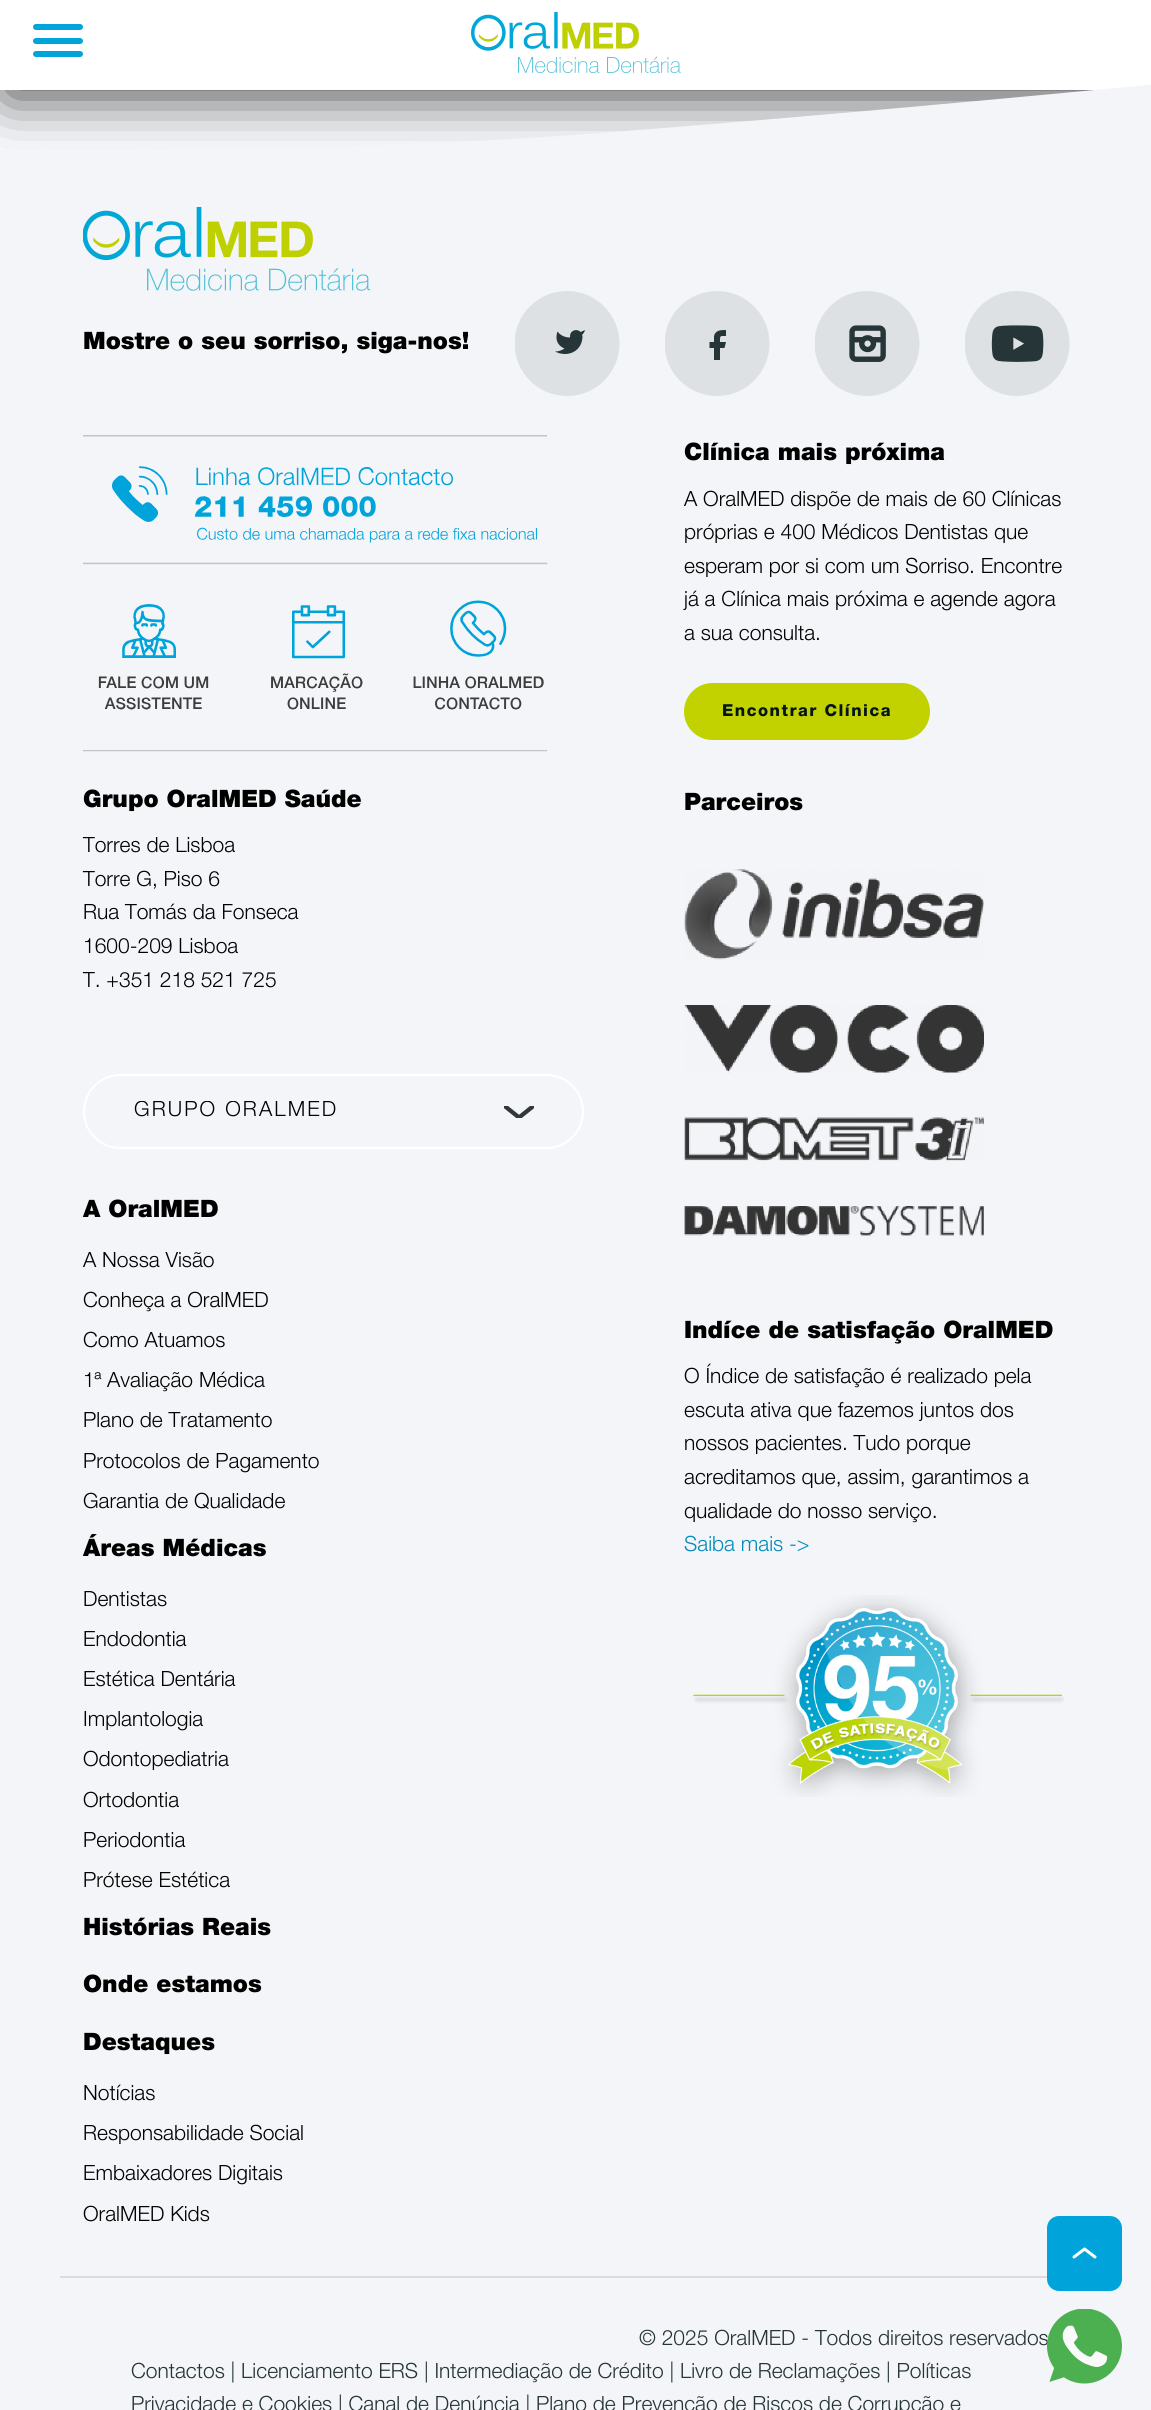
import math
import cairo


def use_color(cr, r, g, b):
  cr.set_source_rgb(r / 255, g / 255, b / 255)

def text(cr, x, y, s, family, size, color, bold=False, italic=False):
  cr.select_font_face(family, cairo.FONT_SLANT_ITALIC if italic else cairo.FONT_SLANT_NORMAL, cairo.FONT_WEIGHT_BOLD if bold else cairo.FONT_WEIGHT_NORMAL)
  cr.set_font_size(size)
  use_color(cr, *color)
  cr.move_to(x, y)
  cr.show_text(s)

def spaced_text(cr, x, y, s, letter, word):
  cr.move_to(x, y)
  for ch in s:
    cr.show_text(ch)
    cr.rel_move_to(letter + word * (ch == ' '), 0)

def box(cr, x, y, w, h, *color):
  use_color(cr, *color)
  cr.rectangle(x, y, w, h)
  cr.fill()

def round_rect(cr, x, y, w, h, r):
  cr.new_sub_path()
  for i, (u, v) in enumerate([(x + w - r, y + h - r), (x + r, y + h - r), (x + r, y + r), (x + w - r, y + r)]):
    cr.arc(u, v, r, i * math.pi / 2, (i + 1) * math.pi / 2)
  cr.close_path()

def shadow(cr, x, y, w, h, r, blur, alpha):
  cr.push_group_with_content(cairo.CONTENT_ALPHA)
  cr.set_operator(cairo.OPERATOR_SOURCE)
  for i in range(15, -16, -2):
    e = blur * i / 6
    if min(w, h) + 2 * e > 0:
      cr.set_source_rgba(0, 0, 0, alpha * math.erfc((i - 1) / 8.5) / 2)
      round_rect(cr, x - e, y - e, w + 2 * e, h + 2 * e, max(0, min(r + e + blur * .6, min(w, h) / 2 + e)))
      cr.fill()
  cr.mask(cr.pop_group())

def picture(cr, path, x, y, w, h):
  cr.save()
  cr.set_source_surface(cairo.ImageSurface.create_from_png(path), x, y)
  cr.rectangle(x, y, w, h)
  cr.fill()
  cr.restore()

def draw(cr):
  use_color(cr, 251, 252, 255)
  cr.paint()
  use_color(cr, 0, 0, 0)
  shadow(cr, 6, 18, 1140, 78, 0, 30, 0.75)
  box(cr, 0, 0, 1151, 90, 255, 255, 255)
  picture(cr, "img_01.png", 471, 12, 210, 61)
  use_color(cr, 0, 164, 219)
  round_rect(cr, 33, 24, 50, 6, 3)
  cr.fill()
  round_rect(cr, 33, 38, 50, 6, 3)
  cr.fill()
  round_rect(cr, 33, 51, 50, 6, 3)
  cr.fill()
  box(cr, 0, 207, 1151, 2203, 243, 245, 248)
  cr.new_path()
  cr.move_to(-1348, 75)
  cr.curve_to(-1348, 75, -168, 193, 600, 133)
  cr.curve_to(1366, 74, 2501, -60, 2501, -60)
  cr.line_to(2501, 207)
  cr.line_to(-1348, 207)
  cr.fill()
  picture(cr, "img_02.png", 83, 207, 288, 84)
  cr.save()
  cr.rectangle(515, 291, 105, 105)
  cr.clip()
  use_color(cr, 222, 225, 228)
  cr.arc(567, 343.5, 52.5, 0, 2 * math.pi)
  cr.fill()
  cr.restore()
  use_color(cr, 38, 53, 56)
  cr.new_path()
  cr.move_to(585, 330)
  cr.line_to(580.5, 332)
  cr.curve_to(578, 329, 572.5, 329.5, 570.5, 333.5)
  cr.curve_to(570, 335, 570, 336, 570, 337.5)
  cr.curve_to(565, 337.5, 560.5, 335.5, 557.5, 331.5)
  cr.curve_to(557.5, 331.5, 552.5, 343.5, 564.5, 348.5)
  cr.curve_to(561.5, 350.5, 558.5, 351.5, 555, 351.5)
  cr.curve_to(567.5, 358, 582.5, 351.5, 582.5, 336)
  cr.line_to(582, 335)
  cr.curve_to(583.5, 333.5, 584.5, 332, 585, 330)
  cr.close_path()
  cr.fill()
  cr.save()
  cr.rectangle(665, 291, 105, 105)
  cr.clip()
  use_color(cr, 222, 225, 228)
  cr.arc(717, 343.5, 52.5, 0, 2 * math.pi)
  cr.fill()
  cr.restore()
  cr.new_path()
  cr.move_to(726, 330)
  cr.curve_to(721, 330, 715.5, 330, 714, 336)
  cr.line_to(714, 342)
  cr.line_to(709.5, 342)
  cr.line_to(709.5, 348)
  cr.line_to(714, 348)
  cr.line_to(714, 360)
  cr.line_to(720, 360)
  cr.line_to(720, 348)
  cr.line_to(724.5, 348)
  cr.line_to(726, 342)
  cr.line_to(720, 342)
  cr.curve_to(720, 335.5, 719.5, 336, 726, 336)
  cr.close_path()
  cr.fill()
  picture(cr, "img_03.png", 815, 291, 105, 105)
  picture(cr, "img_04.png", 965, 291, 105, 105)
  picture(cr, "img_05.png", 83, 435, 465, 317)
  cr.save()
  cr.rectangle(504, 1106, 30, 12)
  cr.clip()
  cr.new_path()
  cr.move_to(504, 1105.5)
  cr.line_to(519, 1117.5)
  cr.line_to(534, 1105.5)
  use_color(cr, 48, 56, 58)
  cr.set_line_width(4.3)
  cr.set_line_cap(cairo.LINE_CAP_ROUND)
  cr.set_line_join(cairo.LINE_JOIN_ROUND)
  cr.stroke()
  cr.restore()
  round_rect(cr, 84, 1075, 499, 73, 36.5)
  use_color(cr, 255, 255, 255)
  cr.stroke()
  use_color(cr, 194, 210, 0)
  round_rect(cr, 684, 683, 246, 57, 28.5)
  cr.fill()
  picture(cr, "img_06.png", 684, 869, 300, 91)
  picture(cr, "img_07.png", 684, 1005, 300, 68)
  picture(cr, "img_08.png", 684, 1117, 300, 44)
  picture(cr, "img_09.png", 684, 1206, 300, 30)
  picture(cr, "img_10.png", 693, 1595, 371, 202)
  box(cr, 60, 2276, 987, 2, 218, 220, 223)
  use_color(cr, 0, 164, 219)
  round_rect(cr, 1047, 2216, 75, 75, 12)
  cr.fill()
  cr.new_path()
  cr.move_to(1095, 2257)
  cr.line_to(1084.5, 2249)
  cr.line_to(1074, 2257)
  use_color(cr, 255, 255, 255)
  cr.set_line_width(3)
  cr.set_line_cap(cairo.LINE_CAP_ROUND)
  cr.set_line_join(cairo.LINE_JOIN_ROUND)
  cr.stroke()
  text(cr, 83, 349, "Mostre o seu sorriso, siga-nos!", "Helvetica Neue Black", 24, (0, 0, 0))
  text(cr, 83, 807, "Grupo OralMED Saúde", "Helvetica Neue Black", 24, (0, 0, 0))
  text(cr, 83, 852, "Torres de Lisboa", "Helvetica Neue Light", 21, (0, 0, 0))
  text(cr, 83, 886, "Torre G, Piso 6", "Helvetica Neue Light", 21, (0, 0, 0))
  text(cr, 83, 919, "Rua Tomás da Fonseca", "Helvetica Neue Light", 21, (0, 0, 0))
  text(cr, 83, 953, "1600-209 Lisboa", "Helvetica Neue Light", 21, (0, 0, 0))
  text(cr, 83, 987, "T. +351 218 521 725", "Helvetica Neue Light", 21, (0, 0, 0))
  cr.save()
  cr.rectangle(134, 1101, 436, 21)
  cr.clip()
  spaced_text(cr, 134, 1116, "GRUPO ORALMED", 2.1, 0)
  cr.restore()
  text(cr, 83, 1217, "A OralMED", "Helvetica Neue Black", 24, (0, 0, 0))
  text(cr, 83, 1267, "A Nossa Visão", "Helvetica Neue Light", 21, (0, 0, 0))
  text(cr, 83, 1307, "Conheça a OralMED", "Helvetica Neue Light", 21, (0, 0, 0))
  text(cr, 83, 1347, "Como Atuamos", "Helvetica Neue Light", 21, (0, 0, 0))
  text(cr, 83, 1387, "1ª Avaliação Médica", "Helvetica Neue Light", 21, (0, 0, 0))
  text(cr, 83, 1427, "Plano de Tratamento", "Helvetica Neue Light", 21, (0, 0, 0))
  text(cr, 83, 1468, "Protocolos de Pagamento", "Helvetica Neue Light", 21, (0, 0, 0))
  text(cr, 83, 1508, "Garantia de Qualidade", "Helvetica Neue Light", 21, (0, 0, 0))
  text(cr, 83, 1556, "Áreas Médicas", "Helvetica Neue Black", 24, (0, 0, 0))
  text(cr, 83, 1606, "Dentistas", "Helvetica Neue Light", 21, (0, 0, 0))
  text(cr, 83, 1646, "Endodontia", "Helvetica Neue Light", 21, (0, 0, 0))
  text(cr, 83, 1686, "Estética Dentária", "Helvetica Neue Light", 21, (0, 0, 0))
  text(cr, 83, 1726, "Implantologia", "Helvetica Neue Light", 21, (0, 0, 0))
  text(cr, 83, 1766, "Odontopediatria", "Helvetica Neue Light", 21, (0, 0, 0))
  text(cr, 83, 1807, "Ortodontia", "Helvetica Neue Light", 21, (0, 0, 0))
  text(cr, 83, 1847, "Periodontia", "Helvetica Neue Light", 21, (0, 0, 0))
  text(cr, 83, 1887, "Prótese Estética", "Helvetica Neue Light", 21, (0, 0, 0))
  text(cr, 83, 1935, "Histórias Reais", "Helvetica Neue Black", 24, (0, 0, 0))
  text(cr, 83, 1992, "Onde estamos", "Helvetica Neue Black", 24, (0, 0, 0))
  text(cr, 83, 2050, "Destaques", "Helvetica Neue Black", 24, (0, 0, 0))
  text(cr, 83, 2100, "Notícias", "Helvetica Neue Light", 21, (0, 0, 0))
  text(cr, 83, 2140, "Responsabilidade Social", "Helvetica Neue Light", 21, (0, 0, 0))
  text(cr, 83, 2180, "Embaixadores Digitais", "Helvetica Neue Light", 21, (0, 0, 0))
  text(cr, 83, 2221, "OralMED Kids", "Helvetica Neue Light", 21, (0, 0, 0))
  text(cr, 684, 460, "Clínica mais próxima", "Helvetica Neue Black", 24, (0, 0, 0))
  text(cr, 684, 506, "A OralMED dispõe de mais de 60 Clínicas", "Helvetica Neue Light", 21, (0, 0, 0))
  text(cr, 684, 539, "próprias e 400 Médicos Dentistas que", "Helvetica Neue Light", 21, (0, 0, 0))
  text(cr, 684, 573, "esperam por si com um Sorriso. Encontre", "Helvetica Neue Light", 21, (0, 0, 0))
  text(cr, 684, 606, "já a Clínica mais próxima e agende agora", "Helvetica Neue Light", 21, (0, 0, 0))
  text(cr, 684, 640, "a sua consulta.", "Helvetica Neue Light", 21, (0, 0, 0))
  cr.select_font_face("Helvetica Neue", cairo.FONT_SLANT_NORMAL, cairo.FONT_WEIGHT_BOLD)
  cr.set_font_size(16.5)
  use_color(cr, 6, 21, 25)
  spaced_text(cr, 722, 716, "Encontrar Clínica", 1.5, 0)
  text(cr, 684, 810, "Parceiros", "Helvetica Neue Black", 24, (0, 0, 0))
  text(cr, 684, 1338, "Indíce de satisfação OralMED", "Helvetica Neue Black", 24, (0, 0, 0))
  text(cr, 684, 1383, "O Índice de satisfação é realizado pela", "Helvetica Neue Light", 21, (0, 0, 0))
  text(cr, 684, 1417, "escuta ativa que fazemos juntos dos", "Helvetica Neue Light", 21, (0, 0, 0))
  text(cr, 684, 1450, "nossos pacientes. Tudo porque", "Helvetica Neue Light", 21, (0, 0, 0))
  text(cr, 684, 1484, "acreditamos que, assim, garantimos a", "Helvetica Neue Light", 21, (0, 0, 0))
  text(cr, 684, 1518, "qualidade do nosso serviço.", "Helvetica Neue Light", 21, (0, 0, 0))
  text(cr, 684, 1551, "Saiba mais ->", "Helvetica Neue Light", 21, (0, 140, 186))
  text(cr, 639, 2345, "© 2025 OralMED - Todos direitos reservados", "Helvetica Neue Light", 21, (38, 52, 55))
  text(cr, 131, 2378, "Contactos | Licenciamento ERS | Intermediação de Crédito | Livro de Reclamações | Políticas", "Helvetica Neue Light", 21, (38, 52, 55))
  text(cr, 131, 2411, "Privacidade e Cookies | Canal de Denúncia | Plano de Prevenção de Riscos de Corrupção e", "Helvetica Neue Light", 21, (38, 52, 55))
  picture(cr, "img_11.png", 1047, 2309, 75, 75)


surface = cairo.ImageSurface(cairo.FORMAT_RGB24, 1151, 2410)
cr = cairo.Context(surface)
options = cairo.FontOptions()
options.set_hint_metrics(cairo.HINT_METRICS_OFF)
options.set_hint_style(cairo.HINT_STYLE_NONE)
cr.set_font_options(options)
cr.set_miter_limit(4)
draw(cr)
surface.write_to_png("out.png")
